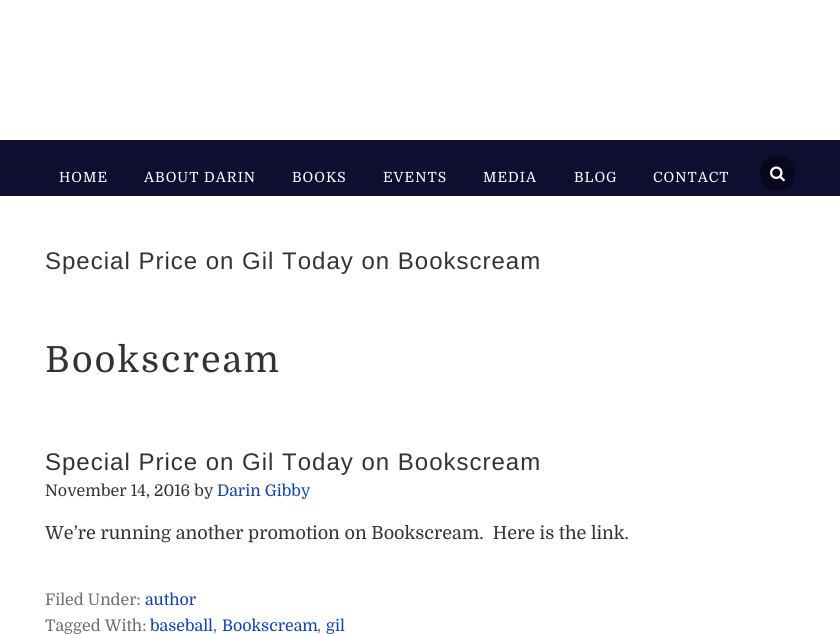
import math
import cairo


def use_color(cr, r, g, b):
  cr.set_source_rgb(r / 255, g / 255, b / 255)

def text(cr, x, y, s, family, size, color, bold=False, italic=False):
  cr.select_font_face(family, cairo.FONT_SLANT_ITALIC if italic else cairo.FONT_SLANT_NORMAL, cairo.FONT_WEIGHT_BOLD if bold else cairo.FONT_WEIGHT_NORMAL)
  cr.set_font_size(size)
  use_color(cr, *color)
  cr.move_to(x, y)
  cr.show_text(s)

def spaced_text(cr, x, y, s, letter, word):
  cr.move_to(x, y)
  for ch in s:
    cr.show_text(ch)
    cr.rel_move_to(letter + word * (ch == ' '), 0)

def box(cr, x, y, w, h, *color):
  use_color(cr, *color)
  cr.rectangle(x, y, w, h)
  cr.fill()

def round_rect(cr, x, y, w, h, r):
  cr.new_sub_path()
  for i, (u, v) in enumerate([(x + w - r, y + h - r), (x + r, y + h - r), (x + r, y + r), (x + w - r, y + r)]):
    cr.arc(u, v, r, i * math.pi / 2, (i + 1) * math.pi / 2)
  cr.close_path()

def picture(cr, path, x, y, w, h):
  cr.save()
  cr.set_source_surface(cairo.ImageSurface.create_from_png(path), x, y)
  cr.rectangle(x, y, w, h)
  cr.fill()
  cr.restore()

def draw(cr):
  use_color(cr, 255, 255, 255)
  cr.paint()
  box(cr, 0, 140, 840, 56, 15, 14, 48)
  use_color(cr, 8, 7, 29)
  round_rect(cr, 760, 155, 35, 36, 17.5)
  cr.fill()
  picture(cr, "img_01.png", 770, 166, 15, 16)
  cr.select_font_face("Domine")
  cr.set_font_size(14)
  use_color(cr, 255, 255, 255)
  spaced_text(cr, 59, 182, "HOME", 1, 0)
  spaced_text(cr, 144, 182, "ABOUT DARIN", 1, 0)
  spaced_text(cr, 292, 182, "BOOKS", 1, 0)
  spaced_text(cr, 383, 182, "EVENTS", 1, 0)
  spaced_text(cr, 483, 182, "MEDIA", 1, 0)
  spaced_text(cr, 574, 182, "BLOG", 1, 0)
  spaced_text(cr, 653, 182, "CONTACT", 1, 0)
  cr.select_font_face("Liberation Sans")
  cr.set_font_size(24)
  use_color(cr, 51, 51, 51)
  spaced_text(cr, 45, 269, "Special Price on Gil Today on Bookscream", 1, 0)
  cr.select_font_face("Domine")
  cr.set_font_size(36)
  spaced_text(cr, 45, 372, "Bookscream", 2, 0)
  cr.select_font_face("Liberation Sans")
  cr.set_font_size(24)
  spaced_text(cr, 45, 470, "Special Price on Gil Today on Bookscream", 1, 0)
  text(cr, 45, 496, "November 14, 2016 by", "Domine", 16, (51, 51, 51))
  text(cr, 217, 496, "Darin Gibby", "Domine", 16, (18, 65, 172))
  text(cr, 45, 539, "We’re running another promotion on Bookscream.  Here is the link.", "Domine", 18, (51, 51, 51))
  text(cr, 45, 605, "Filed Under:", "Domine", 16, (110, 109, 109))
  text(cr, 145, 605, "author", "Domine", 16, (18, 65, 172))
  text(cr, 45, 631, "Tagged With:", "Domine", 16, (110, 109, 109))
  text(cr, 150, 631, "baseball", "Domine", 16, (18, 65, 172))
  text(cr, 213, 631, ",", "Domine", 16, (110, 109, 109))
  text(cr, 222, 631, "Bookscream", "Domine", 16, (18, 65, 172))
  text(cr, 317, 631, ",", "Domine", 16, (110, 109, 109))
  text(cr, 326, 631, "gil", "Domine", 16, (18, 65, 172))


surface = cairo.ImageSurface(cairo.FORMAT_RGB24, 840, 634)
cr = cairo.Context(surface)
options = cairo.FontOptions()
options.set_hint_metrics(cairo.HINT_METRICS_OFF)
options.set_hint_style(cairo.HINT_STYLE_NONE)
cr.set_font_options(options)
cr.set_miter_limit(4)
draw(cr)
surface.write_to_png("out.png")
